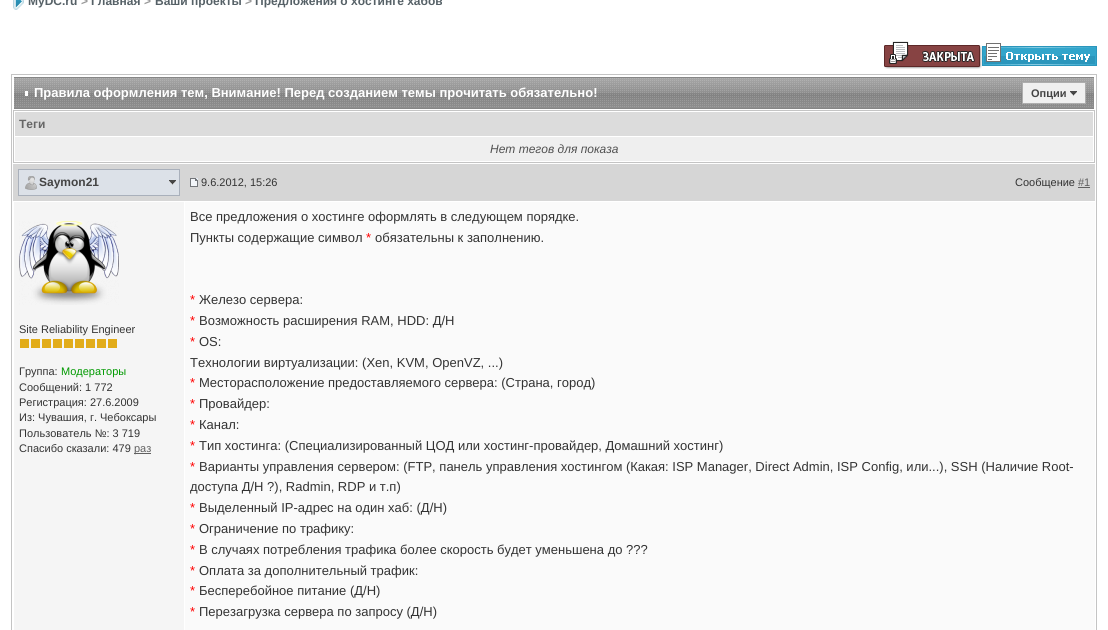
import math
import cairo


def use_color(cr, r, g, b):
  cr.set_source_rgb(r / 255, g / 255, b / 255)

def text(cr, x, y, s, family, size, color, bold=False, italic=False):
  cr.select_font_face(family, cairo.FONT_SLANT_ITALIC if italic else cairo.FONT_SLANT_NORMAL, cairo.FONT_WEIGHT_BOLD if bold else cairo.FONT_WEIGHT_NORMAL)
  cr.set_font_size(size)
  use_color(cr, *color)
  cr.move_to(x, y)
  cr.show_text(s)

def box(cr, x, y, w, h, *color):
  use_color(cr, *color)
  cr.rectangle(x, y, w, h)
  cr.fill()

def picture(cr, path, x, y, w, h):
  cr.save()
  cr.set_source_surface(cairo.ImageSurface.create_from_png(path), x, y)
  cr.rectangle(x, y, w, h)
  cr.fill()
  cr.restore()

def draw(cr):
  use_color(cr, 255, 255, 255)
  cr.paint()
  picture(cr, "img_01.png", 13, 0, 11, 10)
  picture(cr, "img_02.png", 884, 41, 98, 28)
  picture(cr, "img_03.png", 982, 43, 115, 23)
  cr.rectangle(11.5, 74.5, 1085, 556)
  use_color(cr, 196, 196, 196)
  cr.set_line_width(1)
  cr.stroke()
  picture(cr, "img_04.png", 14, 77, 1080, 32)
  box(cr, 25, 91, 3, 5, 255, 255, 255)
  use_color(cr, 240, 240, 240)
  cr.rectangle(1022.5, 82.5, 63, 21)
  cr.fill_preserve()
  use_color(cr, 173, 173, 173)
  cr.stroke()
  picture(cr, "img_05.png", 1070, 91, 7, 5)
  cr.rectangle(13.5, 110.5, 1081, 52)
  use_color(cr, 196, 196, 196)
  cr.stroke()
  box(cr, 15, 112, 1078, 24, 220, 220, 220)
  box(cr, 15, 137, 1078, 24, 239, 239, 239)
  box(cr, 13, 164, 1082, 37, 214, 214, 214)
  box(cr, 19, 170, 160, 25, 220, 225, 232)
  picture(cr, "img_06.png", 169, 180, 7, 5)
  cr.rectangle(18.5, 169.5, 161, 26)
  use_color(cr, 169, 176, 187)
  cr.stroke()
  picture(cr, "img_07.png", 25, 176, 12, 14)
  picture(cr, "img_08.png", 190, 178, 8, 9)
  box(cr, 1078, 187, 12, 1, 96, 96, 96)
  box(cr, 14, 202, 170, 428, 245, 245, 245)
  picture(cr, "img_09.png", 19, 221, 100, 84)
  box(cr, 20, 339, 9, 9, 226, 172, 25)
  box(cr, 31, 339, 9, 9, 226, 172, 25)
  box(cr, 42, 339, 9, 9, 226, 172, 25)
  box(cr, 53, 339, 9, 9, 226, 172, 25)
  box(cr, 64, 339, 9, 9, 226, 172, 25)
  box(cr, 75, 339, 9, 9, 226, 172, 25)
  box(cr, 86, 339, 9, 9, 226, 172, 25)
  box(cr, 97, 339, 9, 9, 226, 172, 25)
  box(cr, 108, 339, 9, 9, 226, 172, 25)
  box(cr, 134, 453, 17, 1, 96, 96, 96)
  box(cr, 185, 202, 910, 428, 250, 250, 250)
  text(cr, 28, 5, "MyDC.ru", "Liberation Sans", 12, (86, 97, 103), bold=True)
  text(cr, 81, 5, ">", "Liberation Sans", 12, (153, 153, 153), bold=True)
  text(cr, 91, 5, "Главная", "Liberation Sans", 12, (86, 97, 103), bold=True)
  text(cr, 144, 5, ">", "Liberation Sans", 12, (153, 153, 153), bold=True)
  text(cr, 155, 5, "Ваши проекты", "Liberation Sans", 12, (86, 97, 103), bold=True)
  text(cr, 245, 5, ">", "Liberation Sans", 12, (153, 153, 153), bold=True)
  text(cr, 255, 5, "Предложения о хостинге хабов", "Liberation Sans", 12, (86, 97, 103), bold=True)
  text(cr, 34, 97, "Правила оформления тем, Внимание! Перед созданием темы прочитать обязательно!", "Liberation Sans", 13, (255, 255, 255), bold=True)
  text(cr, 1031, 97, "Опции", "Liberation Sans", 11, (68, 68, 68), bold=True)
  text(cr, 19, 128, "Теги", "Liberation Sans", 12, (102, 102, 102), bold=True)
  text(cr, 490, 153, "Нет тегов для показа", "Liberation Sans", 12, (80, 80, 80), italic=True)
  text(cr, 39, 186, "Saymon21", "Liberation Sans", 12, (68, 68, 68), bold=True)
  text(cr, 201, 186, "9.6.2012, 15:26", "Liberation Sans", 11, (51, 51, 51))
  text(cr, 1015, 186, "Сообщение", "Liberation Sans", 11, (51, 51, 51))
  text(cr, 1078, 186, "#1", "Liberation Sans", 11, (96, 96, 96))
  text(cr, 19, 333, "Site Reliability Engineer", "Liberation Sans", 11, (51, 51, 51))
  text(cr, 19, 375, "Группа:", "Liberation Sans", 11, (51, 51, 51))
  text(cr, 61, 375, "Модераторы", "Liberation Sans", 11, (0, 153, 0))
  text(cr, 19, 391, "Сообщений: 1 772", "Liberation Sans", 11, (51, 51, 51))
  text(cr, 19, 406, "Регистрация: 27.6.2009", "Liberation Sans", 11, (51, 51, 51))
  text(cr, 19, 421, "Из: Чувашия, г. Чебоксары", "Liberation Sans", 11, (51, 51, 51))
  text(cr, 19, 437, "Пользователь №: 3 719", "Liberation Sans", 11, (51, 51, 51))
  text(cr, 19, 452, "Спасибо сказали: 479", "Liberation Sans", 11, (51, 51, 51))
  text(cr, 134, 452, "раз", "Liberation Sans", 11, (96, 96, 96))
  text(cr, 190, 221, "Все предложения о хостинге оформлять в следующем порядке.", "Liberation Sans", 13, (51, 51, 51))
  text(cr, 190, 242, "Пункты содержащие символ", "Liberation Sans", 13, (51, 51, 51))
  text(cr, 366, 242, "*", "Liberation Sans", 13, (255, 0, 0))
  text(cr, 375, 242, "обязательны к заполнению.", "Liberation Sans", 13, (51, 51, 51))
  text(cr, 190, 304, "*", "Liberation Sans", 13, (255, 0, 0))
  text(cr, 199, 304, "Железо сервера:", "Liberation Sans", 13, (51, 51, 51))
  text(cr, 190, 325, "*", "Liberation Sans", 13, (255, 0, 0))
  text(cr, 199, 325, "Возможность расширения RAM, HDD: Д/Н", "Liberation Sans", 13, (51, 51, 51))
  text(cr, 190, 346, "*", "Liberation Sans", 13, (255, 0, 0))
  text(cr, 199, 346, "OS:", "Liberation Sans", 13, (51, 51, 51))
  text(cr, 190, 367, "Технологии виртуализации: (Xen, KVM, OpenVZ, ...)", "Liberation Sans", 13, (51, 51, 51))
  text(cr, 190, 387, "*", "Liberation Sans", 13, (255, 0, 0))
  text(cr, 199, 387, "Месторасположение предоставляемого сервера: (Страна, город)", "Liberation Sans", 13, (51, 51, 51))
  text(cr, 190, 408, "*", "Liberation Sans", 13, (255, 0, 0))
  text(cr, 199, 408, "Провайдер:", "Liberation Sans", 13, (51, 51, 51))
  text(cr, 190, 429, "*", "Liberation Sans", 13, (255, 0, 0))
  text(cr, 199, 429, "Канал:", "Liberation Sans", 13, (51, 51, 51))
  text(cr, 190, 450, "*", "Liberation Sans", 13, (255, 0, 0))
  text(cr, 199, 450, "Тип хостинга: (Специализированный ЦОД или хостинг-провайдер, Домашний хостинг)", "Liberation Sans", 13, (51, 51, 51))
  text(cr, 190, 471, "*", "Liberation Sans", 13, (255, 0, 0))
  text(cr, 199, 471, "Варианты управления сервером: (FTP, панель управления хостингом (Какая: ISP Manager, Direct Admin, ISP Config, или...), SSH (Наличие Root-", "Liberation Sans", 13, (51, 51, 51))
  text(cr, 190, 491, "доступа Д/Н ?), Radmin, RDP и т.п)", "Liberation Sans", 13, (51, 51, 51))
  text(cr, 190, 512, "*", "Liberation Sans", 13, (255, 0, 0))
  text(cr, 199, 512, "Выделенный IP-адрес на один хаб: (Д/Н)", "Liberation Sans", 13, (51, 51, 51))
  text(cr, 190, 533, "*", "Liberation Sans", 13, (255, 0, 0))
  text(cr, 199, 533, "Ограничение по трафику:", "Liberation Sans", 13, (51, 51, 51))
  text(cr, 190, 554, "*", "Liberation Sans", 13, (255, 0, 0))
  text(cr, 199, 554, "В случаях потребления трафика более скорость будет уменьшена до ???", "Liberation Sans", 13, (51, 51, 51))
  text(cr, 190, 575, "*", "Liberation Sans", 13, (255, 0, 0))
  text(cr, 199, 575, "Оплата за дополнительный трафик:", "Liberation Sans", 13, (51, 51, 51))
  text(cr, 190, 595, "*", "Liberation Sans", 13, (255, 0, 0))
  text(cr, 199, 595, "Бесперебойное питание (Д/Н)", "Liberation Sans", 13, (51, 51, 51))
  text(cr, 190, 616, "*", "Liberation Sans", 13, (255, 0, 0))
  text(cr, 199, 616, "Перезагрузка сервера по запросу (Д/Н)", "Liberation Sans", 13, (51, 51, 51))


surface = cairo.ImageSurface(cairo.FORMAT_RGB24, 1108, 630)
cr = cairo.Context(surface)
options = cairo.FontOptions()
options.set_hint_metrics(cairo.HINT_METRICS_OFF)
options.set_hint_style(cairo.HINT_STYLE_NONE)
cr.set_font_options(options)
cr.set_miter_limit(4)
draw(cr)
surface.write_to_png("out.png")
